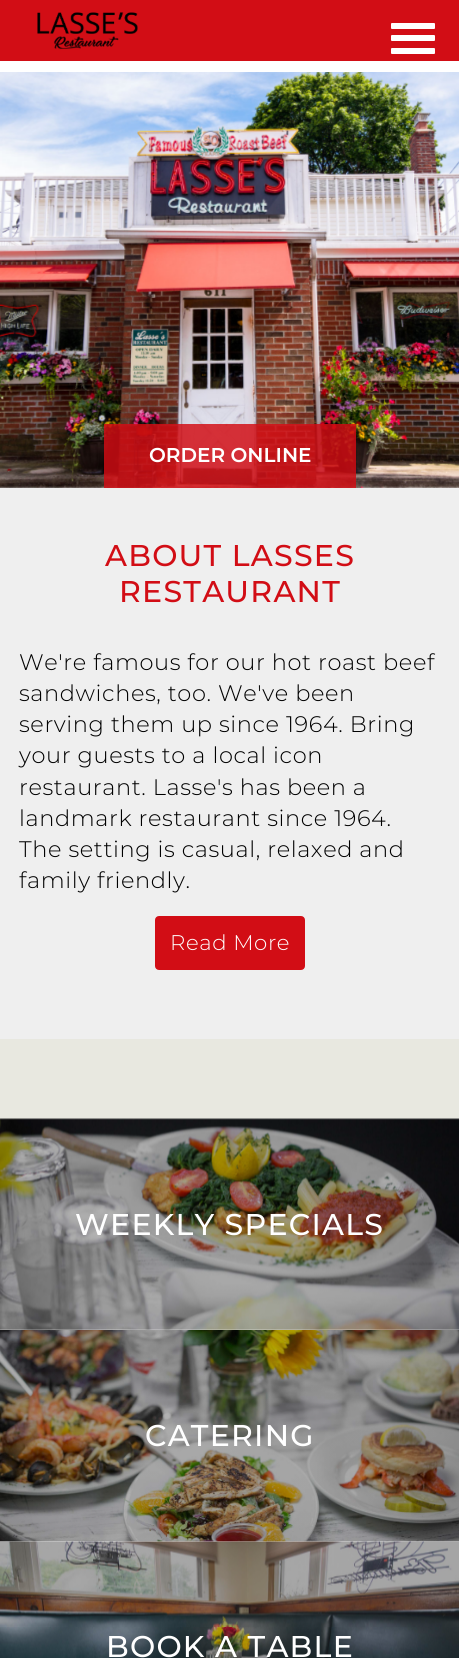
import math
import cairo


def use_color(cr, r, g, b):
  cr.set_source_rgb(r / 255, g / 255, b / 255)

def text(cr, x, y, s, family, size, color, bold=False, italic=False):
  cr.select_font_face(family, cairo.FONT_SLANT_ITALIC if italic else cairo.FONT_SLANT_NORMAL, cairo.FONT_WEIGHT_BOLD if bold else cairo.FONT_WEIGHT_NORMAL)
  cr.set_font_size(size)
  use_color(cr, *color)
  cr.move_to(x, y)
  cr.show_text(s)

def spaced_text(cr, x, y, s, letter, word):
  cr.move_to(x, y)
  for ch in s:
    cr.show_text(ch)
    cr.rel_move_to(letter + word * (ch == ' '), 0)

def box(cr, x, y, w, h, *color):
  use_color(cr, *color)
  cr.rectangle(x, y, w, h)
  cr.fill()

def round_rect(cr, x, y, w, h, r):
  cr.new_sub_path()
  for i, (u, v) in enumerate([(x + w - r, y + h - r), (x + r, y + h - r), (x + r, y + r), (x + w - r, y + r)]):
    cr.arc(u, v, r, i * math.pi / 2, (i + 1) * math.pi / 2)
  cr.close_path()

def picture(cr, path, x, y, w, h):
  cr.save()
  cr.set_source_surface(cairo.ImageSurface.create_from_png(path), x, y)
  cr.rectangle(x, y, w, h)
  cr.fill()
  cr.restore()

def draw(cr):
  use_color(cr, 255, 255, 255)
  cr.paint()
  box(cr, 0, 0, 459, 61, 210, 13, 21)
  picture(cr, "img_01.png", 37, 12, 101, 37)
  use_color(cr, 255, 255, 255)
  round_rect(cr, 391, 35, 44, 6, 1)
  cr.fill()
  round_rect(cr, 391, 23, 44, 6, 1)
  cr.fill()
  round_rect(cr, 391, 48, 44, 6, 1)
  cr.fill()
  picture(cr, "img_02.png", 0, 72, 459, 416)
  cr.set_source_rgba(0.824, 0.051, 0.078, 0.83)
  cr.rectangle(104, 424, 252, 64)
  cr.fill()
  box(cr, 0, 488, 459, 551, 239, 239, 239)
  use_color(cr, 210, 13, 21)
  round_rect(cr, 156.5, 917.5, 147, 51, 2.5)
  cr.fill_preserve()
  cr.set_line_width(3)
  cr.stroke()
  box(cr, 0, 1039, 459, 80, 232, 232, 224)
  picture(cr, "img_03.png", 0, 1118, 459, 212)
  picture(cr, "img_05.png", 0, 1541, 459, 117)
  picture(cr, "img_04.png", 0, 1330, 459, 212)
  text(cr, 149, 462, "ORDER ONLINE", "Montserrat SemiBold", 20, (255, 255, 255))
  cr.select_font_face("Montserrat Medium")
  cr.set_font_size(30)
  use_color(cr, 210, 13, 21)
  spaced_text(cr, 105, 566, "ABOUT LASSES", 1.25, 0)
  spaced_text(cr, 119, 602, "RESTAURANT", 1.25, 0)
  cr.select_font_face("Montserrat Light")
  cr.set_font_size(22.5)
  use_color(cr, 0, 0, 0)
  spaced_text(cr, 19, 670, "We're famous for our hot roast beef", 0.6, 0)
  spaced_text(cr, 19, 701, "sandwiches, too. We've been", 0.6, 0)
  spaced_text(cr, 19, 732, "serving them up since 1964. Bring", 0.6, 0)
  spaced_text(cr, 19, 763, "your guests to a local icon", 0.6, 0)
  spaced_text(cr, 19, 795, "restaurant. Lasse's has been a", 0.6, 0)
  spaced_text(cr, 19, 826, "landmark restaurant since 1964.", 0.6, 0)
  spaced_text(cr, 19, 857, "The setting is casual, relaxed and", 0.6, 0)
  spaced_text(cr, 19, 888, "family friendly.", 0.6, 0)
  cr.set_font_size(21.25)
  use_color(cr, 255, 255, 255)
  spaced_text(cr, 170, 950, "Read More", 0.6, 0)
  cr.select_font_face("Montserrat Medium")
  cr.set_font_size(30)
  spaced_text(cr, 75, 1235, "WEEKLY SPECIALS", 1.25, 0)
  spaced_text(cr, 145, 1446, "CATERING", 1.25, 0)
  spaced_text(cr, 106, 1657, "BOOK A TABLE", 1.25, 0)


surface = cairo.ImageSurface(cairo.FORMAT_RGB24, 459, 1658)
cr = cairo.Context(surface)
options = cairo.FontOptions()
options.set_hint_metrics(cairo.HINT_METRICS_OFF)
options.set_hint_style(cairo.HINT_STYLE_NONE)
cr.set_font_options(options)
cr.set_miter_limit(4)
draw(cr)
surface.write_to_png("out.png")
